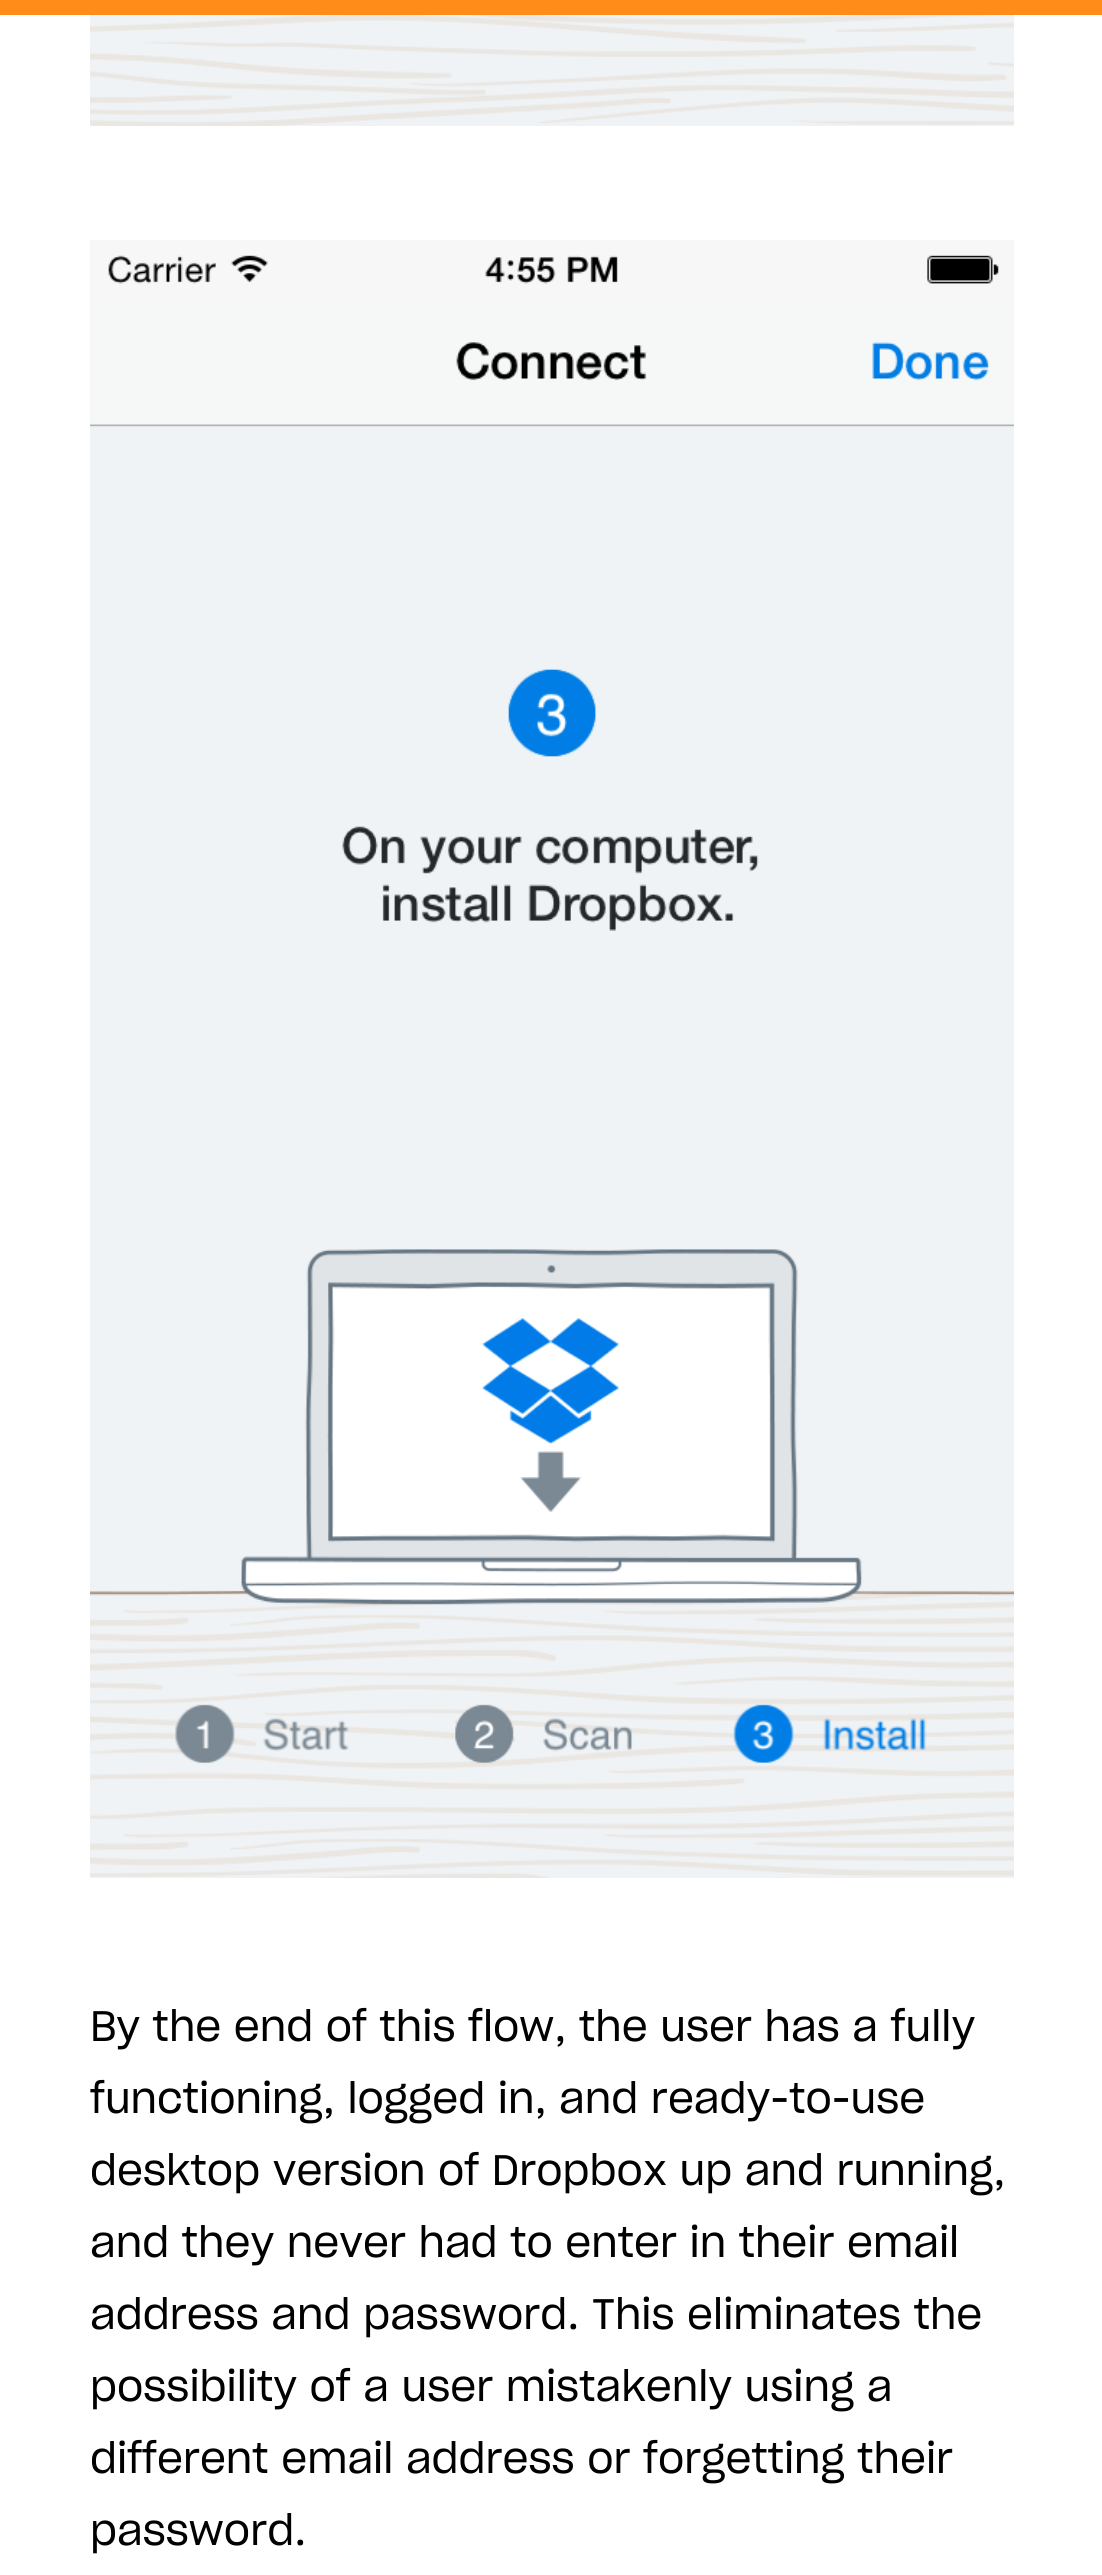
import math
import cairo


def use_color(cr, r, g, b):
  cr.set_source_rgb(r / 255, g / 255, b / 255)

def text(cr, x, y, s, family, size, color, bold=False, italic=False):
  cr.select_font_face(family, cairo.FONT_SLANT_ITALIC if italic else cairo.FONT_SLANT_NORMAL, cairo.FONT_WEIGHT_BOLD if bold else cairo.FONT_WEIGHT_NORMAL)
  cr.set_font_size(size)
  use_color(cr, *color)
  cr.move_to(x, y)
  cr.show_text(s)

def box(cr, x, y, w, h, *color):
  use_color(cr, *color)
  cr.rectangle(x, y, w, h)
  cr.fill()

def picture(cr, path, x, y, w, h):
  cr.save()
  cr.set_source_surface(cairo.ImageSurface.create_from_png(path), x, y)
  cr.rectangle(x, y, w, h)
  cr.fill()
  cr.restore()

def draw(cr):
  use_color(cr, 255, 255, 255)
  cr.paint()
  box(cr, 0, 0, 1102, 15, 255, 140, 25)
  picture(cr, "img_01.png", 90, 15, 924, 111)
  picture(cr, "img_02.png", 90, 240, 924, 1638)
  text(cr, 90, 2041, "By the end of this flow, the user has a fully", "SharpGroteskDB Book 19", 42, (0, 0, 0))
  text(cr, 90, 2113, "functioning, logged in, and ready-to-use", "SharpGroteskDB Book 19", 42, (0, 0, 0))
  text(cr, 90, 2185, "desktop version of Dropbox up and running,", "SharpGroteskDB Book 19", 42, (0, 0, 0))
  text(cr, 90, 2257, "and they never had to enter in their email", "SharpGroteskDB Book 19", 42, (0, 0, 0))
  text(cr, 90, 2329, "address and password. This eliminates the", "SharpGroteskDB Book 19", 42, (0, 0, 0))
  text(cr, 90, 2401, "possibility of a user mistakenly using a", "SharpGroteskDB Book 19", 42, (0, 0, 0))
  text(cr, 90, 2473, "different email address or forgetting their", "SharpGroteskDB Book 19", 42, (0, 0, 0))
  text(cr, 90, 2545, "password.", "SharpGroteskDB Book 19", 42, (0, 0, 0))


surface = cairo.ImageSurface(cairo.FORMAT_RGB24, 1102, 2575)
cr = cairo.Context(surface)
options = cairo.FontOptions()
options.set_hint_metrics(cairo.HINT_METRICS_OFF)
options.set_hint_style(cairo.HINT_STYLE_NONE)
cr.set_font_options(options)
cr.set_miter_limit(4)
draw(cr)
surface.write_to_png("out.png")
